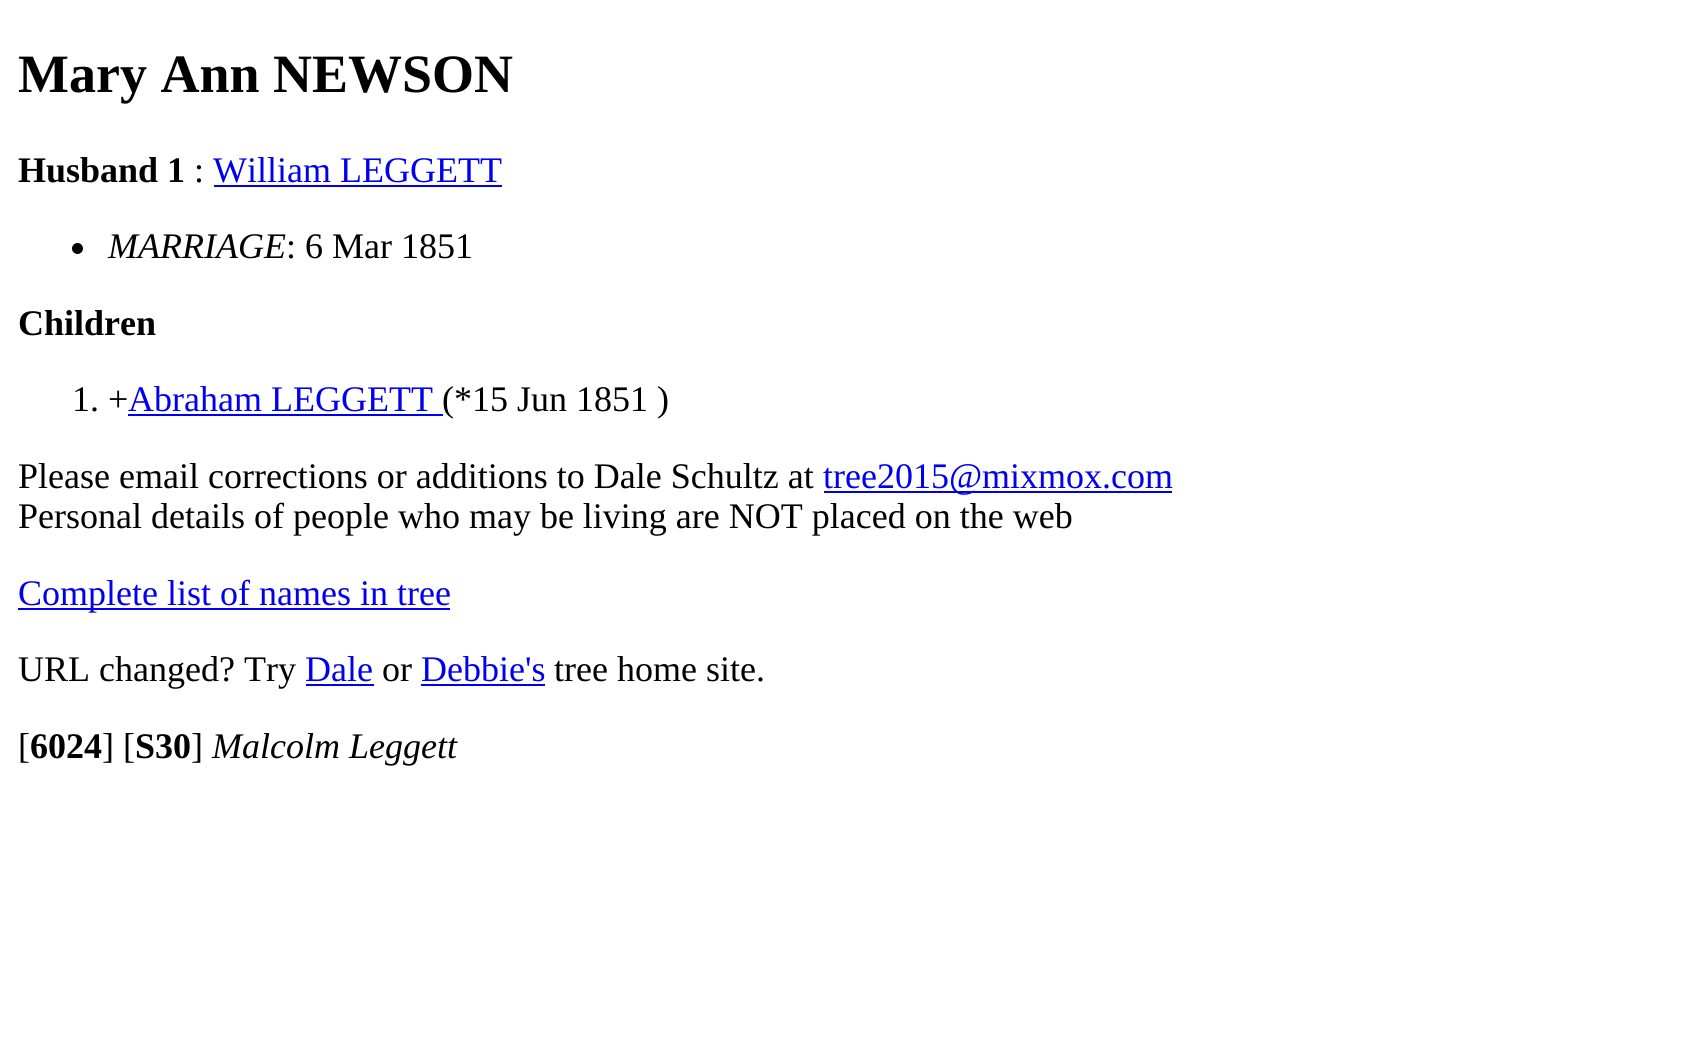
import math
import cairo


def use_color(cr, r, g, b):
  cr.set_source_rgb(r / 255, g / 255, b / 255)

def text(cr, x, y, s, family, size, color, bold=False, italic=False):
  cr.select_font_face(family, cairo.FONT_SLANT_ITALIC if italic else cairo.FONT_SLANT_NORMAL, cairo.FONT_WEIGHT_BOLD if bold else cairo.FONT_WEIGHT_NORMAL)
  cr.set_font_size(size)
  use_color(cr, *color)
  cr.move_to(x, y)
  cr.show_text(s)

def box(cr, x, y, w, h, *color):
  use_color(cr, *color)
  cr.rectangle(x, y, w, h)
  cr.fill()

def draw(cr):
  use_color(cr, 255, 255, 255)
  cr.paint()
  box(cr, 214, 185, 288, 2, 0, 0, 238)
  use_color(cr, 0, 0, 0)
  cr.arc(77.5, 248.5, 5.5, 0, 2 * math.pi)
  cr.fill()
  box(cr, 128, 414, 315, 2, 0, 0, 238)
  box(cr, 824, 491, 348, 2, 0, 0, 238)
  box(cr, 18, 608, 432, 2, 0, 0, 238)
  box(cr, 306, 684, 68, 2, 0, 0, 238)
  box(cr, 421, 684, 124, 2, 0, 0, 238)
  text(cr, 18, 92, "Mary Ann NEWSON", "Liberation Serif", 54, (0, 0, 0), bold=True)
  text(cr, 18, 182, "Husband 1", "Liberation Serif", 36, (0, 0, 0), bold=True)
  text(cr, 194, 182, ":", "Liberation Serif", 36, (0, 0, 0))
  text(cr, 213, 182, "William LEGGETT", "Liberation Serif", 36, (0, 0, 238))
  text(cr, 108, 258, "MARRIAGE", "Liberation Serif", 36, (0, 0, 0), italic=True)
  text(cr, 286, 258, ": 6 Mar 1851", "Liberation Serif", 36, (0, 0, 0))
  text(cr, 18, 335, "Children", "Liberation Serif", 36, (0, 0, 0), bold=True)
  text(cr, 72, 411, "1. +", "Liberation Serif", 36, (0, 0, 0))
  text(cr, 128, 411, "Abraham LEGGETT", "Liberation Serif", 36, (0, 0, 238))
  text(cr, 442, 411, "(*15 Jun 1851 )", "Liberation Serif", 36, (0, 0, 0))
  text(cr, 18, 488, "Please email corrections or additions to Dale Schultz at", "Liberation Serif", 36, (0, 0, 0))
  text(cr, 823, 488, "tree2015@mixmox.com", "Liberation Serif", 36, (0, 0, 238))
  text(cr, 18, 528, "Personal details of people who may be living are NOT placed on the web", "Liberation Serif", 36, (0, 0, 0))
  text(cr, 18, 605, "Complete list of names in tree", "Liberation Serif", 36, (0, 0, 238))
  text(cr, 18, 681, "URL changed? Try", "Liberation Serif", 36, (0, 0, 0))
  text(cr, 305, 681, "Dale", "Liberation Serif", 36, (0, 0, 238))
  text(cr, 382, 681, "or", "Liberation Serif", 36, (0, 0, 0))
  text(cr, 421, 681, "Debbie's", "Liberation Serif", 36, (0, 0, 238))
  text(cr, 554, 681, "tree home site.", "Liberation Serif", 36, (0, 0, 0))
  text(cr, 18, 758, "[", "Liberation Serif", 36, (0, 0, 0))
  text(cr, 30, 758, "6024", "Liberation Serif", 36, (0, 0, 0), bold=True)
  text(cr, 102, 758, "] [", "Liberation Serif", 36, (0, 0, 0))
  text(cr, 135, 758, "S30", "Liberation Serif", 36, (0, 0, 0), bold=True)
  text(cr, 191, 758, "]", "Liberation Serif", 36, (0, 0, 0))
  text(cr, 212, 758, "Malcolm Leggett", "Liberation Serif", 36, (0, 0, 0), italic=True)


surface = cairo.ImageSurface(cairo.FORMAT_RGB24, 1704, 1041)
cr = cairo.Context(surface)
options = cairo.FontOptions()
options.set_hint_metrics(cairo.HINT_METRICS_OFF)
options.set_hint_style(cairo.HINT_STYLE_NONE)
cr.set_font_options(options)
cr.set_miter_limit(4)
draw(cr)
surface.write_to_png("out.png")
